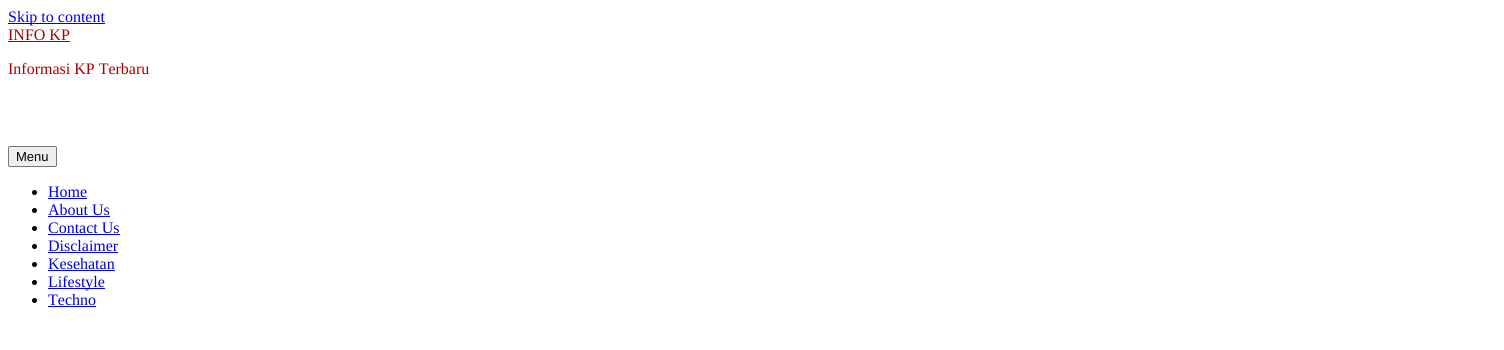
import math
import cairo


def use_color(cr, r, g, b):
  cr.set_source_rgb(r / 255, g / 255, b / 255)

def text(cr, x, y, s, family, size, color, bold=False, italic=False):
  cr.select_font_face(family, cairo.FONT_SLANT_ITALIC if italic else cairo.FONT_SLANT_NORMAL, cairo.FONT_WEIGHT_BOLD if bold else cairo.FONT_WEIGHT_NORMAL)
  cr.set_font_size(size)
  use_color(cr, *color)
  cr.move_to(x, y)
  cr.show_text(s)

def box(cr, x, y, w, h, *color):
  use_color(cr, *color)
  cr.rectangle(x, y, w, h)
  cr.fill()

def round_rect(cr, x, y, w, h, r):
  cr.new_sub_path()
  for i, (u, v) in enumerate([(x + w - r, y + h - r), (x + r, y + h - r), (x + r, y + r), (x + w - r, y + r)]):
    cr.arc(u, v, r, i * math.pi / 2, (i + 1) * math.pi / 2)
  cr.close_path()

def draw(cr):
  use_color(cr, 255, 255, 255)
  cr.paint()
  box(cr, 8, 23, 97, 1, 0, 0, 238)
  box(cr, 8, 41, 62, 1, 168, 0, 0)
  use_color(cr, 239, 239, 239)
  round_rect(cr, 8.5, 146.5, 48, 20, 1.5)
  cr.fill_preserve()
  use_color(cr, 118, 118, 118)
  cr.set_line_width(1)
  cr.stroke()
  use_color(cr, 0, 0, 0)
  cr.arc(34.5, 192.5, 2.5, 0, 2 * math.pi)
  cr.fill()
  box(cr, 48, 198, 39, 1, 0, 0, 238)
  use_color(cr, 0, 0, 0)
  cr.arc(34.5, 210.5, 2.5, 0, 2 * math.pi)
  cr.fill()
  box(cr, 48, 216, 62, 1, 0, 0, 238)
  use_color(cr, 0, 0, 0)
  cr.arc(34.5, 228.5, 2.5, 0, 2 * math.pi)
  cr.fill()
  box(cr, 48, 234, 72, 1, 0, 0, 238)
  use_color(cr, 0, 0, 0)
  cr.arc(34.5, 246.5, 2.5, 0, 2 * math.pi)
  cr.fill()
  box(cr, 48, 252, 70, 1, 0, 0, 238)
  use_color(cr, 0, 0, 0)
  cr.arc(34.5, 264.5, 2.5, 0, 2 * math.pi)
  cr.fill()
  box(cr, 48, 270, 67, 1, 0, 0, 238)
  use_color(cr, 0, 0, 0)
  cr.arc(34.5, 282.5, 2.5, 0, 2 * math.pi)
  cr.fill()
  box(cr, 48, 288, 57, 1, 0, 0, 238)
  use_color(cr, 0, 0, 0)
  cr.arc(34.5, 300.5, 2.5, 0, 2 * math.pi)
  cr.fill()
  box(cr, 48, 306, 48, 1, 0, 0, 238)
  text(cr, 8, 22, "Skip to content", "Liberation Serif", 16, (0, 0, 238))
  text(cr, 8, 40, "INFO KP", "Liberation Serif", 16, (168, 0, 0))
  text(cr, 8, 74, "Informasi KP Terbaru", "Liberation Serif", 16, (168, 0, 0))
  text(cr, 16, 161, "Menu", "Liberation Sans", 13, (0, 0, 0))
  text(cr, 48, 197, "Home", "Liberation Serif", 16, (0, 0, 238))
  text(cr, 48, 215, "About Us", "Liberation Serif", 16, (0, 0, 238))
  text(cr, 48, 233, "Contact Us", "Liberation Serif", 16, (0, 0, 238))
  text(cr, 48, 251, "Disclaimer", "Liberation Serif", 16, (0, 0, 238))
  text(cr, 48, 269, "Kesehatan", "Liberation Serif", 16, (0, 0, 238))
  text(cr, 48, 287, "Lifestyle", "Liberation Serif", 16, (0, 0, 238))
  text(cr, 48, 305, "Techno", "Liberation Serif", 16, (0, 0, 238))


surface = cairo.ImageSurface(cairo.FORMAT_RGB24, 1504, 350)
cr = cairo.Context(surface)
options = cairo.FontOptions()
options.set_hint_metrics(cairo.HINT_METRICS_OFF)
options.set_hint_style(cairo.HINT_STYLE_NONE)
cr.set_font_options(options)
cr.set_miter_limit(4)
draw(cr)
surface.write_to_png("out.png")
